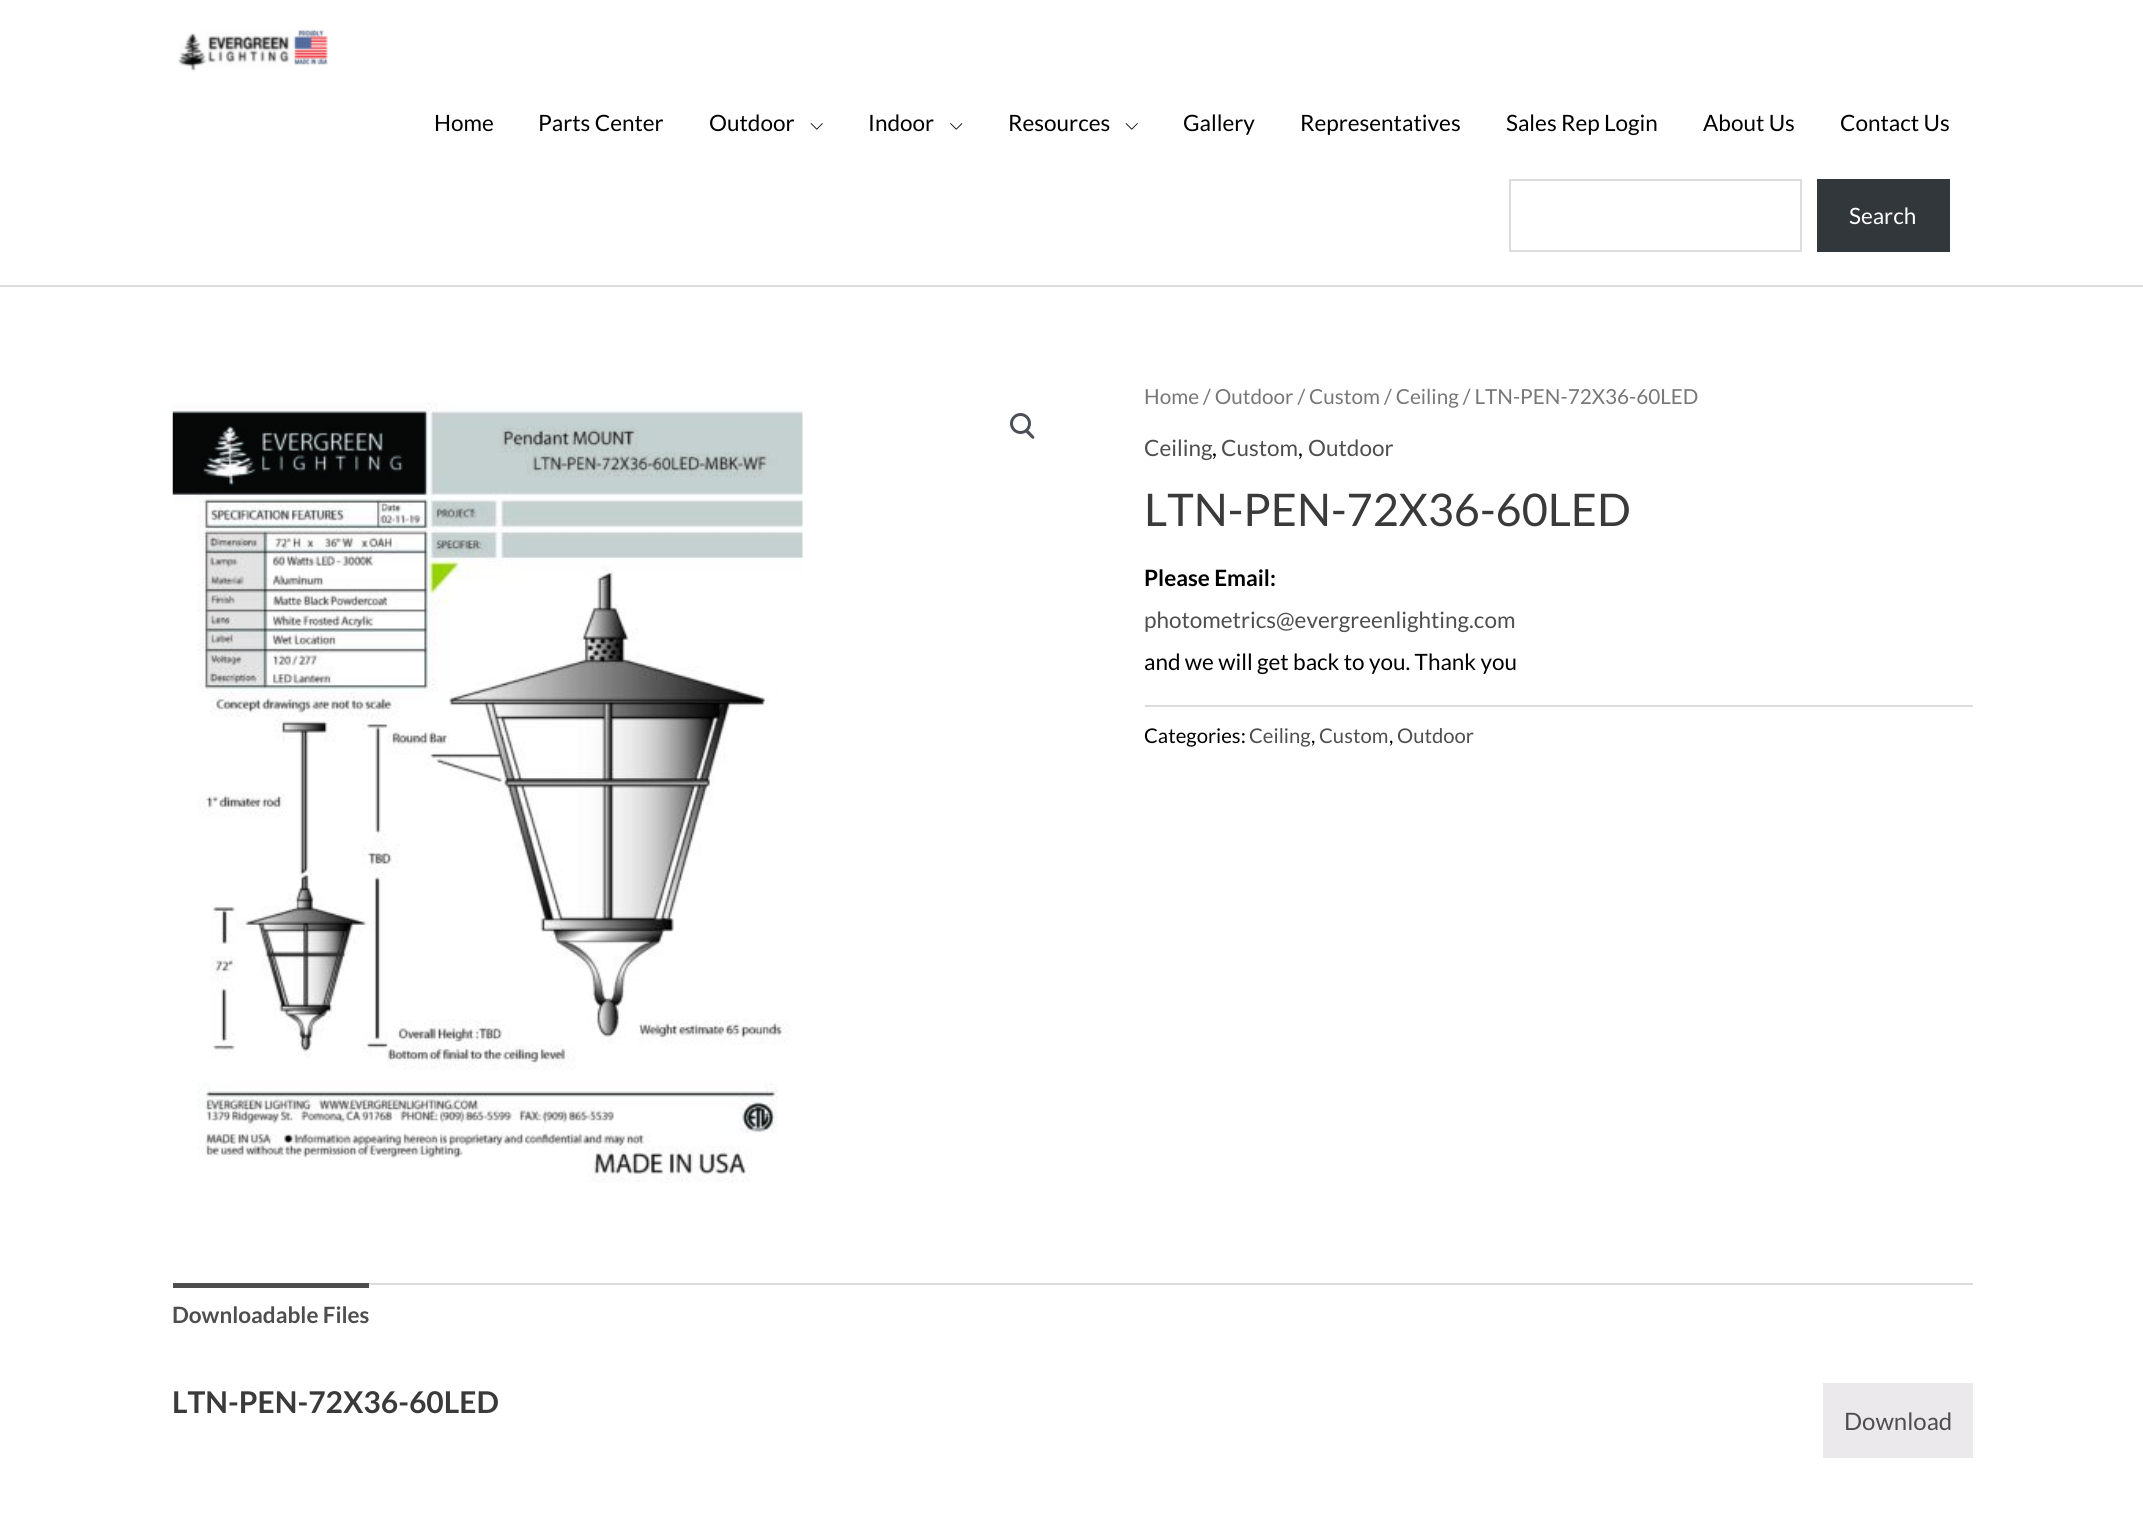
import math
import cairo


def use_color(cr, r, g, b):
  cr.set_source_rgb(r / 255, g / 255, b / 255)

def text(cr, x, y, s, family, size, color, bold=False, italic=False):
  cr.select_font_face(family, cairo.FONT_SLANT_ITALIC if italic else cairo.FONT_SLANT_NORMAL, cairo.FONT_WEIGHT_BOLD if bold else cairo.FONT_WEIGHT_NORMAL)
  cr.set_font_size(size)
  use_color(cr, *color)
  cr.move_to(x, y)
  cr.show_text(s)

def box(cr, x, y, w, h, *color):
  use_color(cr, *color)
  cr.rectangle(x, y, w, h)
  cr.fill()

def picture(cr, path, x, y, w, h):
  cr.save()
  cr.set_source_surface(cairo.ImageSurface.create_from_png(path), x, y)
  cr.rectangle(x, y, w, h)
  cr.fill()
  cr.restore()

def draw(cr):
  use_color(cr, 255, 255, 255)
  cr.paint()
  box(cr, 0, 285, 2143, 2, 221, 221, 221)
  picture(cr, "img_01.png", 178, 29, 150, 43)
  picture(cr, "img_02.png", 810, 123, 13, 7)
  picture(cr, "img_03.png", 950, 123, 13, 7)
  picture(cr, "img_02.png", 1125, 123, 13, 7)
  cr.rectangle(1510, 180, 291, 71)
  cr.stroke()
  box(cr, 1817, 179, 133, 73, 50, 55, 60)
  picture(cr, "img_04.png", 172, 402, 631, 781)
  cr.arc(1020.5, 423.5, 9, 0, 2 * math.pi)
  use_color(cr, 75, 79, 88)
  cr.set_line_width(3)
  cr.stroke()
  cr.new_path()
  cr.move_to(1025.5, 430)
  cr.curve_to(1027, 428, 1030, 432, 1031, 433)
  cr.curve_to(1031.5, 434, 1035.5, 436.5, 1034, 438.5)
  cr.curve_to(1032.5, 440, 1029.5, 436, 1028.5, 435)
  cr.curve_to(1028, 434.5, 1024, 431.5, 1025.5, 430)
  cr.close_path()
  cr.fill()
  box(cr, 1145, 705, 828, 2, 221, 221, 221)
  box(cr, 369, 1283, 1604, 2, 221, 221, 221)
  box(cr, 173, 1283, 196, 5, 78, 78, 78)
  box(cr, 1823, 1383, 150, 75, 235, 233, 235)
  text(cr, 434, 131, "Home", "Lato", 22.5, (0, 0, 0))
  text(cr, 538, 131, "Parts Center", "Lato", 22.5, (0, 0, 0))
  text(cr, 709, 131, "Outdoor", "Lato", 22.5, (0, 0, 0))
  text(cr, 868, 131, "Indoor", "Lato", 22.5, (0, 0, 0))
  text(cr, 1008, 131, "Resources", "Lato", 22.5, (0, 0, 0))
  text(cr, 1183, 131, "Gallery", "Lato", 22.5, (0, 0, 0))
  text(cr, 1300, 131, "Representatives", "Lato", 22.5, (0, 0, 0))
  text(cr, 1506, 131, "Sales Rep Login", "Lato", 22.5, (0, 0, 0))
  text(cr, 1703, 131, "About Us", "Lato", 22.5, (0, 0, 0))
  text(cr, 1840, 131, "Contact Us", "Lato", 22.5, (0, 0, 0))
  text(cr, 1849, 224, "Search", "Lato", 22.5, (255, 255, 255))
  text(cr, 1144, 404, "Home / Outdoor / Custom / Ceiling / LTN-PEN-72X36-60LED", "Lato", 20.7, (119, 119, 119))
  text(cr, 1144, 456, "Ceiling", "Lato", 22.5, (78, 78, 78))
  text(cr, 1212, 456, ",", "Lato", 22.5, (0, 0, 0))
  text(cr, 1221, 456, "Custom", "Lato", 22.5, (78, 78, 78))
  text(cr, 1298, 456, ",", "Lato", 22.5, (0, 0, 0))
  text(cr, 1308, 456, "Outdoor", "Lato", 22.5, (78, 78, 78))
  text(cr, 1144, 526, "LTN-PEN-72X36-60LED", "Lato", 45, (58, 58, 58))
  text(cr, 1144, 586, "Please Email:", "Lato", 22.5, (0, 0, 0), bold=True)
  text(cr, 1144, 628, "photometrics@evergreenlighting.com", "Lato", 22.5, (78, 78, 78))
  text(cr, 1144, 670, "and we will get back to you. Thank you", "Lato", 22.5, (0, 0, 0))
  text(cr, 1144, 743, "Categories:", "Lato", 20.25, (0, 0, 0))
  text(cr, 1249, 743, "Ceiling", "Lato", 20.25, (78, 78, 78))
  text(cr, 1311, 743, ",", "Lato", 20.25, (0, 0, 0))
  text(cr, 1319, 743, "Custom", "Lato", 20.25, (78, 78, 78))
  text(cr, 1389, 743, ",", "Lato", 20.25, (0, 0, 0))
  text(cr, 1397, 743, "Outdoor", "Lato", 20.25, (78, 78, 78))
  text(cr, 172, 1323, "Downloadable Files", "Lato", 22.5, (78, 78, 78), bold=True)
  text(cr, 172, 1413, "LTN-PEN-72X36-60LED", "Lato", 30, (58, 58, 58), bold=True)
  text(cr, 1844, 1430, "Download", "Lato", 24, (78, 78, 78))


surface = cairo.ImageSurface(cairo.FORMAT_RGB24, 2143, 1515)
cr = cairo.Context(surface)
options = cairo.FontOptions()
options.set_hint_metrics(cairo.HINT_METRICS_OFF)
options.set_hint_style(cairo.HINT_STYLE_NONE)
cr.set_font_options(options)
cr.set_miter_limit(4)
draw(cr)
surface.write_to_png("out.png")
